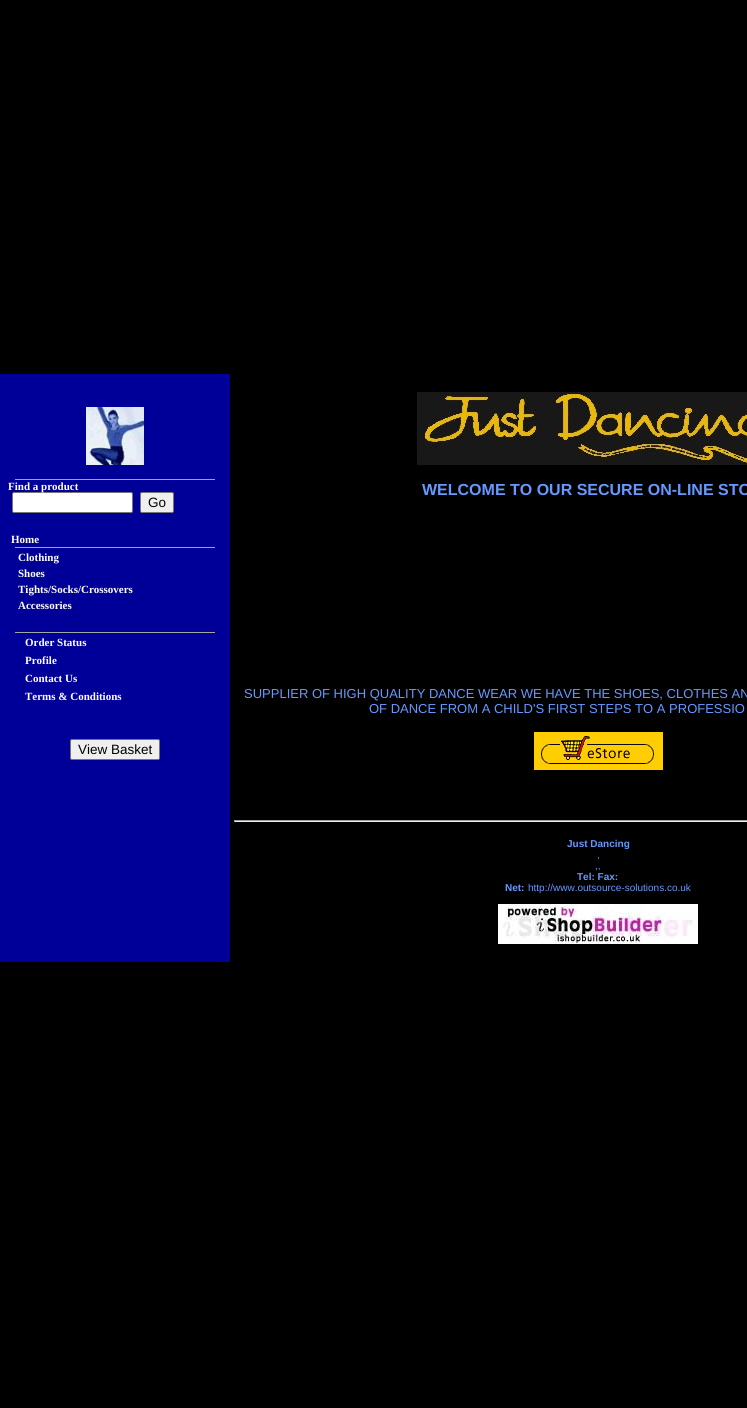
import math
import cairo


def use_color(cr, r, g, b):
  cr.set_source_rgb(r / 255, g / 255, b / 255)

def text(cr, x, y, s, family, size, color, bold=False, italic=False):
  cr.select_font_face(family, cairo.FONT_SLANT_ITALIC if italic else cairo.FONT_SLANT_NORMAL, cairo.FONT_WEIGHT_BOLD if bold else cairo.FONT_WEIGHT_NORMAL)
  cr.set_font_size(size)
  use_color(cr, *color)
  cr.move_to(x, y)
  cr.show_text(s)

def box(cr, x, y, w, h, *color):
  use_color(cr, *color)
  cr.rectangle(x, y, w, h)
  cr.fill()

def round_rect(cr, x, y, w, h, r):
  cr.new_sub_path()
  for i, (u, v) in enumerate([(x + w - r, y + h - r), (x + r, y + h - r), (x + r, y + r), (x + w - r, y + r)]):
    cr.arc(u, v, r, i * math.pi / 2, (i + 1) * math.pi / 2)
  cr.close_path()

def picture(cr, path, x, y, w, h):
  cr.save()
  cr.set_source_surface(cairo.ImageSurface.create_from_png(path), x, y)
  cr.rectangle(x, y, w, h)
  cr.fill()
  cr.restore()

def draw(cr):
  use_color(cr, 0, 0, 0)
  cr.paint()
  box(cr, 0, 374, 230, 588, 0, 0, 153)
  picture(cr, "img_01.png", 86, 407, 58, 58)
  box(cr, 15, 479, 200, 1, 165, 165, 165)
  use_color(cr, 255, 255, 255)
  round_rect(cr, 12.5, 492.5, 120, 20, 1.5)
  cr.fill_preserve()
  use_color(cr, 118, 118, 118)
  cr.set_line_width(1)
  cr.stroke()
  use_color(cr, 239, 239, 239)
  round_rect(cr, 140.5, 492.5, 33, 20, 1.5)
  cr.fill_preserve()
  use_color(cr, 118, 118, 118)
  cr.stroke()
  box(cr, 15, 547, 200, 1, 165, 165, 165)
  box(cr, 15, 632, 200, 1, 165, 165, 165)
  use_color(cr, 239, 239, 239)
  round_rect(cr, 70.5, 739.5, 89, 20, 1.5)
  cr.fill_preserve()
  use_color(cr, 118, 118, 118)
  cr.stroke()
  picture(cr, "img_02.png", 417, 392, 330, 73)
  picture(cr, "img_03.png", 534, 732, 129, 38)
  box(cr, 234, 820, 513, 1, 159, 159, 159)
  box(cr, 234, 821, 513, 1, 238, 238, 238)
  box(cr, 234, 820, 1, 2, 159, 159, 159)
  picture(cr, "img_04.png", 498, 904, 200, 40)
  text(cr, 8, 490, "Find a product", "Liberation Serif", 11, (255, 255, 255), bold=True)
  text(cr, 148, 507, "Go", "Liberation Sans", 13.5, (0, 0, 0))
  text(cr, 11, 543, "Home", "Liberation Serif", 11, (255, 255, 255), bold=True)
  text(cr, 18, 561, "Clothing", "Liberation Serif", 11, (255, 255, 255), bold=True)
  text(cr, 18, 577, "Shoes", "Liberation Serif", 11, (255, 255, 255), bold=True)
  text(cr, 18, 593, "Tights/Socks/Crossovers", "Liberation Serif", 11, (255, 255, 255), bold=True)
  text(cr, 18, 609, "Accessories", "Liberation Serif", 11, (255, 255, 255), bold=True)
  text(cr, 25, 646, "Order Status", "Liberation Serif", 11, (255, 255, 255), bold=True)
  text(cr, 25, 664, "Profile", "Liberation Serif", 11, (255, 255, 255), bold=True)
  text(cr, 25, 682, "Contact Us", "Liberation Serif", 11, (255, 255, 255), bold=True)
  text(cr, 25, 700, "Terms & Conditions", "Liberation Serif", 11, (255, 255, 255), bold=True)
  text(cr, 78, 754, "View Basket", "Liberation Sans", 13.5, (0, 0, 0))
  text(cr, 422, 495, "WELCOME TO OUR SECURE ON-LINE STO", "Liberation Sans", 16, (102, 153, 255), bold=True)
  text(cr, 244, 698, "SUPPLIER OF HIGH QUALITY DANCE WEAR WE HAVE THE SHOES, CLOTHES AN", "Liberation Sans", 13, (102, 153, 255))
  text(cr, 369, 713, "OF DANCE FROM A CHILD'S FIRST STEPS TO A PROFESSIO", "Liberation Sans", 13, (102, 153, 255))
  text(cr, 567, 847, "Just Dancing", "Liberation Sans", 10, (102, 153, 255), bold=True)
  text(cr, 597, 858, ",", "Liberation Sans", 10, (102, 153, 255))
  text(cr, 595, 869, ",,", "Liberation Sans", 10, (102, 153, 255))
  text(cr, 577, 880, "Tel: Fax:", "Liberation Sans", 10, (102, 153, 255), bold=True)
  text(cr, 505, 891, "Net:", "Liberation Sans", 10, (102, 153, 255), bold=True)
  text(cr, 528, 891, "http://www.outsource-solutions.co.uk", "Liberation Sans", 10, (102, 153, 255))


surface = cairo.ImageSurface(cairo.FORMAT_RGB24, 747, 1408)
cr = cairo.Context(surface)
options = cairo.FontOptions()
options.set_hint_metrics(cairo.HINT_METRICS_OFF)
options.set_hint_style(cairo.HINT_STYLE_NONE)
cr.set_font_options(options)
cr.set_miter_limit(4)
draw(cr)
surface.write_to_png("out.png")
